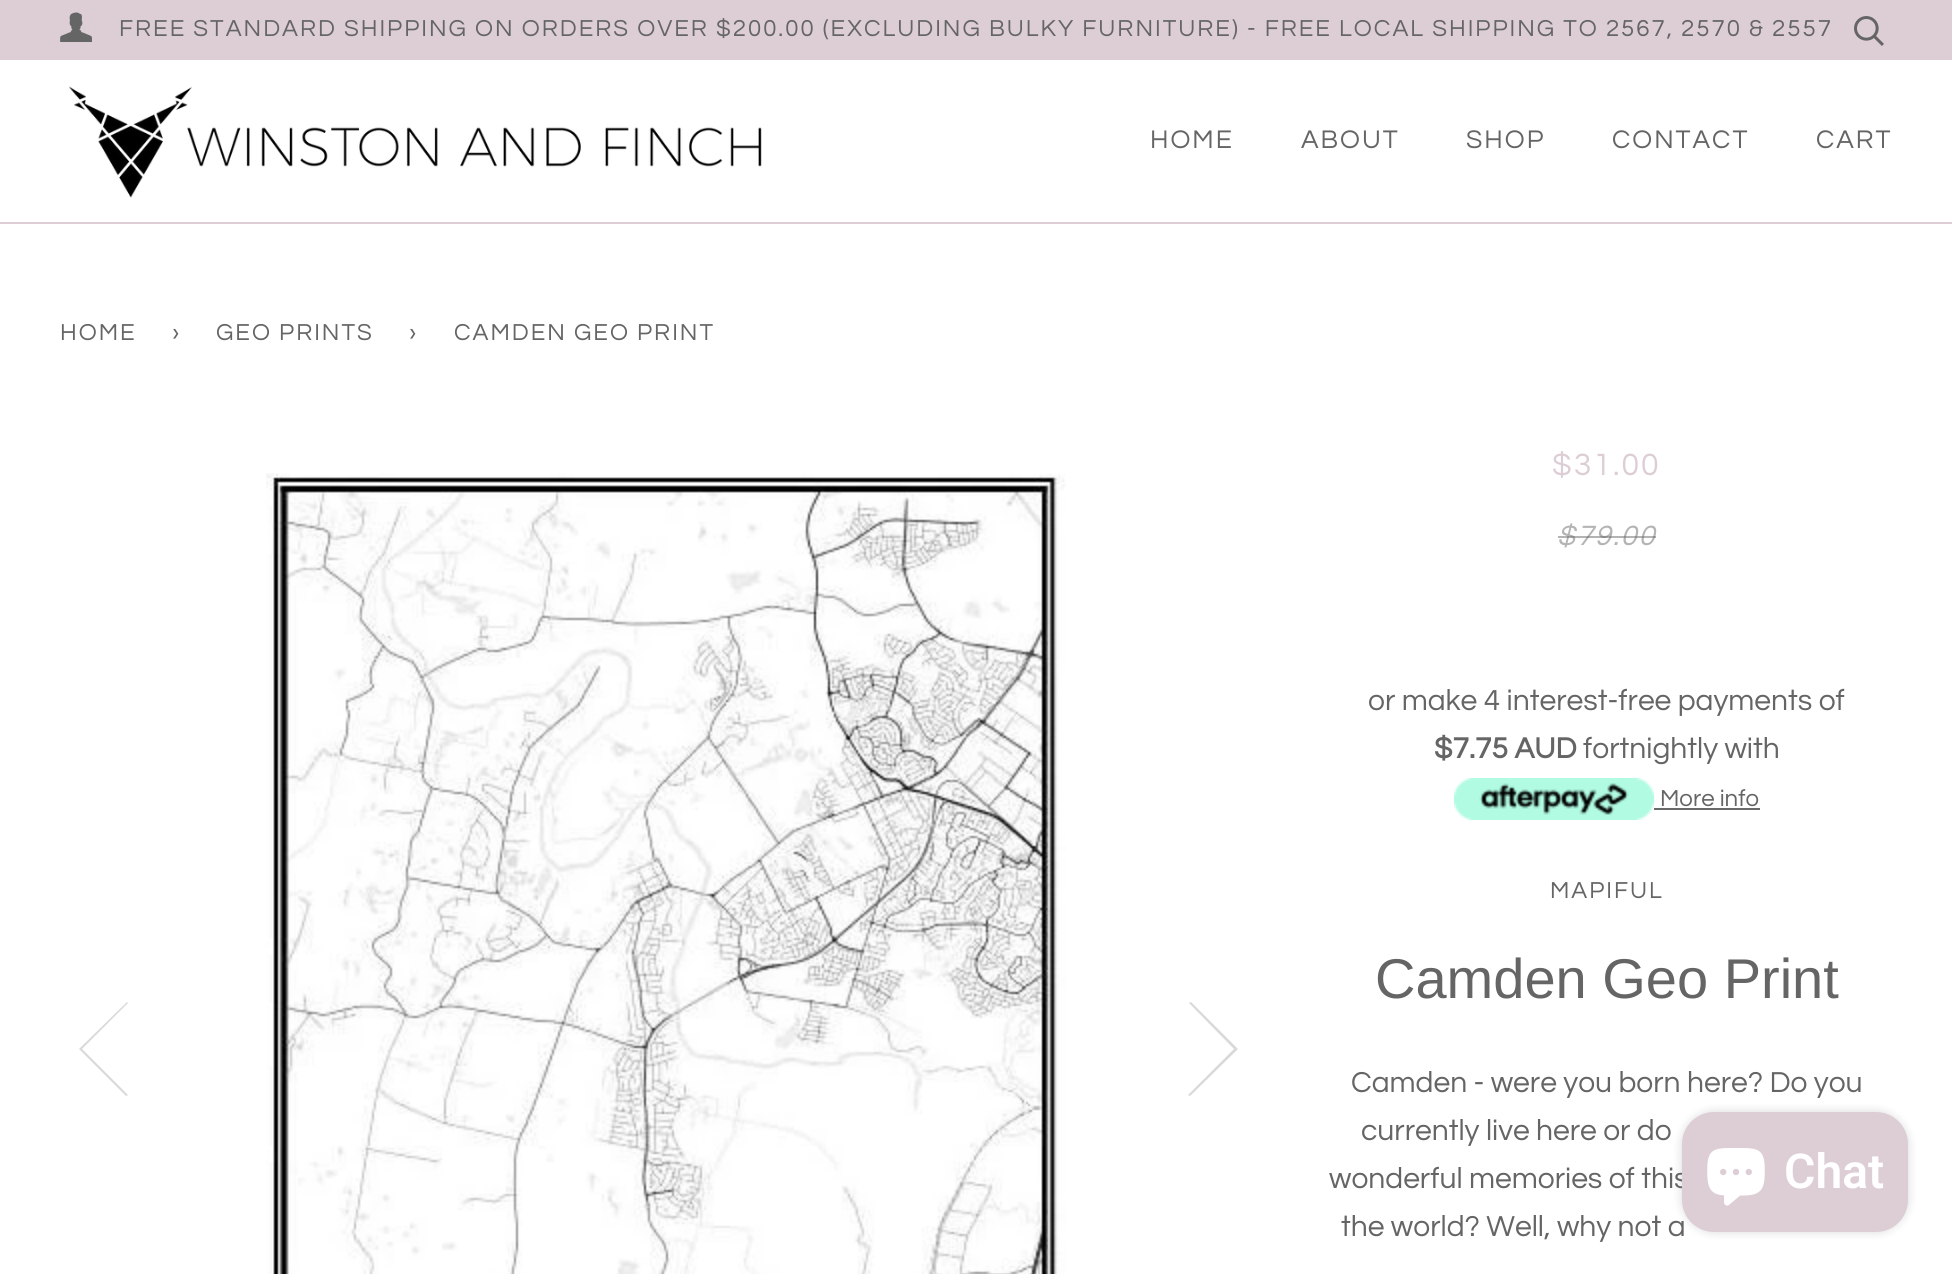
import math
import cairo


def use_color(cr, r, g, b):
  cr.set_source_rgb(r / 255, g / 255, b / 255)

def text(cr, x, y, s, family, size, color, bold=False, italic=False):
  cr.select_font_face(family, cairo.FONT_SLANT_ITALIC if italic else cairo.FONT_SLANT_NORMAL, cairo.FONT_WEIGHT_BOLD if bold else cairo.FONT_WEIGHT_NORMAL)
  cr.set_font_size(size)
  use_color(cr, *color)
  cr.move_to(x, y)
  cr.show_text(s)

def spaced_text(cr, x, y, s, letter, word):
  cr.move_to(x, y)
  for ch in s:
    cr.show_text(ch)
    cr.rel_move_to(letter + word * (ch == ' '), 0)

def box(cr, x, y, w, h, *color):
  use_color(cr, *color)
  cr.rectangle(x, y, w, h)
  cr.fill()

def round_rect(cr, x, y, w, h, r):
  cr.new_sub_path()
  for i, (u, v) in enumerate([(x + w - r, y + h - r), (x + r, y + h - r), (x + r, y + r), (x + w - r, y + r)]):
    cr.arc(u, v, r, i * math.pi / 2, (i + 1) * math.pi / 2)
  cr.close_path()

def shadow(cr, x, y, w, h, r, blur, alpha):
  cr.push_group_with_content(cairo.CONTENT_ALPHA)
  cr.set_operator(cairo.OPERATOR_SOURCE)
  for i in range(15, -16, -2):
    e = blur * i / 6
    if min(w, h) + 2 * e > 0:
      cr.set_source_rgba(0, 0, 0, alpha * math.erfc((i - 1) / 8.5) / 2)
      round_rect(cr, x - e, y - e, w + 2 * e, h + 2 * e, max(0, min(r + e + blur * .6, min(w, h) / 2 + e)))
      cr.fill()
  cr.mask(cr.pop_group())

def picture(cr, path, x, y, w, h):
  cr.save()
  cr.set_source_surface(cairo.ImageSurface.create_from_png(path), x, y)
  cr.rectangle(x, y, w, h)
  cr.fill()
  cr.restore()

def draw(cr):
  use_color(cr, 255, 255, 255)
  cr.paint()
  box(cr, 0, 0, 1952, 60, 221, 206, 213)
  picture(cr, "img_01.png", 60, 12, 32, 30)
  picture(cr, "img_02.png", 1854, 16, 30, 30)
  box(cr, 0, 222, 1952, 2, 221, 206, 213)
  picture(cr, "img_03.png", 69, 86, 693, 112)
  use_color(cr, 217, 217, 217)
  cr.new_path()
  cr.move_to(80, 1050)
  cr.line_to(126, 1096)
  cr.line_to(128, 1095)
  cr.line_to(82, 1049)
  cr.line_to(128, 1003)
  cr.line_to(127, 1002)
  cr.line_to(79, 1049)
  cr.close_path()
  cr.fill()
  picture(cr, "img_04.png", 266, 473, 800, 801)
  cr.new_path()
  cr.move_to(1237, 1048)
  cr.line_to(1191, 1002)
  cr.line_to(1189, 1003)
  cr.line_to(1234, 1049)
  cr.line_to(1188, 1095)
  cr.line_to(1190, 1096)
  cr.line_to(1238, 1049)
  cr.close_path()
  cr.fill()
  picture(cr, "img_05.png", 1454, 778, 200, 42)
  box(cr, 1654, 808, 106, 2, 105, 105, 105)
  use_color(cr, 0, 0, 0)
  shadow(cr, 1682, 1112, 226, 120, 32, 5, 0.15)
  cr.select_font_face("Questrial")
  cr.set_font_size(24)
  use_color(cr, 101, 101, 101)
  spaced_text(cr, 119, 36, "FREE STANDARD SHIPPING ON ORDERS OVER $200.00 (EXCLUDING BULKY FURNITURE) - FREE LOCAL SHIPPING TO 2567, 2570 & 2557", 2, 0)
  cr.set_font_size(26.5)
  spaced_text(cr, 1150, 148, "HOME", 2, 0)
  spaced_text(cr, 1301, 148, "ABOUT", 2, 0)
  spaced_text(cr, 1466, 148, "SHOP", 2, 0)
  spaced_text(cr, 1612, 148, "CONTACT", 2, 0)
  spaced_text(cr, 1816, 148, "CART", 2, 0)
  cr.set_font_size(24)
  spaced_text(cr, 60, 340, "HOME", 2, 0)
  spaced_text(cr, 172, 340, "›", 2, 0)
  spaced_text(cr, 216, 340, "GEO PRINTS", 2, 0)
  spaced_text(cr, 409, 340, "›", 2, 0)
  spaced_text(cr, 454, 340, "CAMDEN GEO PRINT", 2, 0)
  cr.set_font_size(32)
  use_color(cr, 221, 206, 213)
  spaced_text(cr, 1552, 475, "$31.00", 2, 0)
  cr.select_font_face("Questrial", cairo.FONT_SLANT_ITALIC)
  cr.set_font_size(29)
  use_color(cr, 180, 180, 180)
  spaced_text(cr, 1557, 545, "$79.00", 2, 0)
  cr.set_source_rgba(0.412, 0.412, 0.412, 0.5)
  cr.rectangle(1558, 536, 98, 2)
  cr.fill()
  text(cr, 1368, 710, "or make 4 interest-free payments of", "Questrial", 30, (101, 101, 101))
  text(cr, 1434, 758, "$7.75 AUD", "Questrial", 30, (101, 101, 101), bold=True)
  text(cr, 1583, 758, "fortnightly with", "Questrial", 30, (101, 101, 101))
  text(cr, 1660, 806, "More info", "Questrial", 24, (101, 101, 101))
  spaced_text(cr, 1550, 898, "MAPIFUL", 2, 0)
  text(cr, 1375, 998, "Camden Geo Print", "Liberation Sans", 56, (101, 101, 101))
  text(cr, 1351, 1092, "Camden - were you born here? Do you", "Questrial", 30, (101, 101, 101))
  text(cr, 1361, 1140, "currently live here or do", "Questrial", 30, (101, 101, 101))
  text(cr, 1329, 1188, "wonderful memories of this", "Questrial", 30, (101, 101, 101))
  text(cr, 1341, 1236, "the world? Well, why not a", "Questrial", 30, (101, 101, 101))
  use_color(cr, 221, 206, 213)
  round_rect(cr, 1682, 1112, 226, 120, 32)
  cr.fill()
  picture(cr, "img_06.png", 1707, 1148, 58, 58)
  text(cr, 1784, 1188, "Chat", "Roboto SemiBold", 48, (255, 255, 255))


surface = cairo.ImageSurface(cairo.FORMAT_RGB24, 1952, 1274)
cr = cairo.Context(surface)
options = cairo.FontOptions()
options.set_hint_metrics(cairo.HINT_METRICS_OFF)
options.set_hint_style(cairo.HINT_STYLE_NONE)
cr.set_font_options(options)
cr.set_miter_limit(4)
draw(cr)
surface.write_to_png("out.png")
